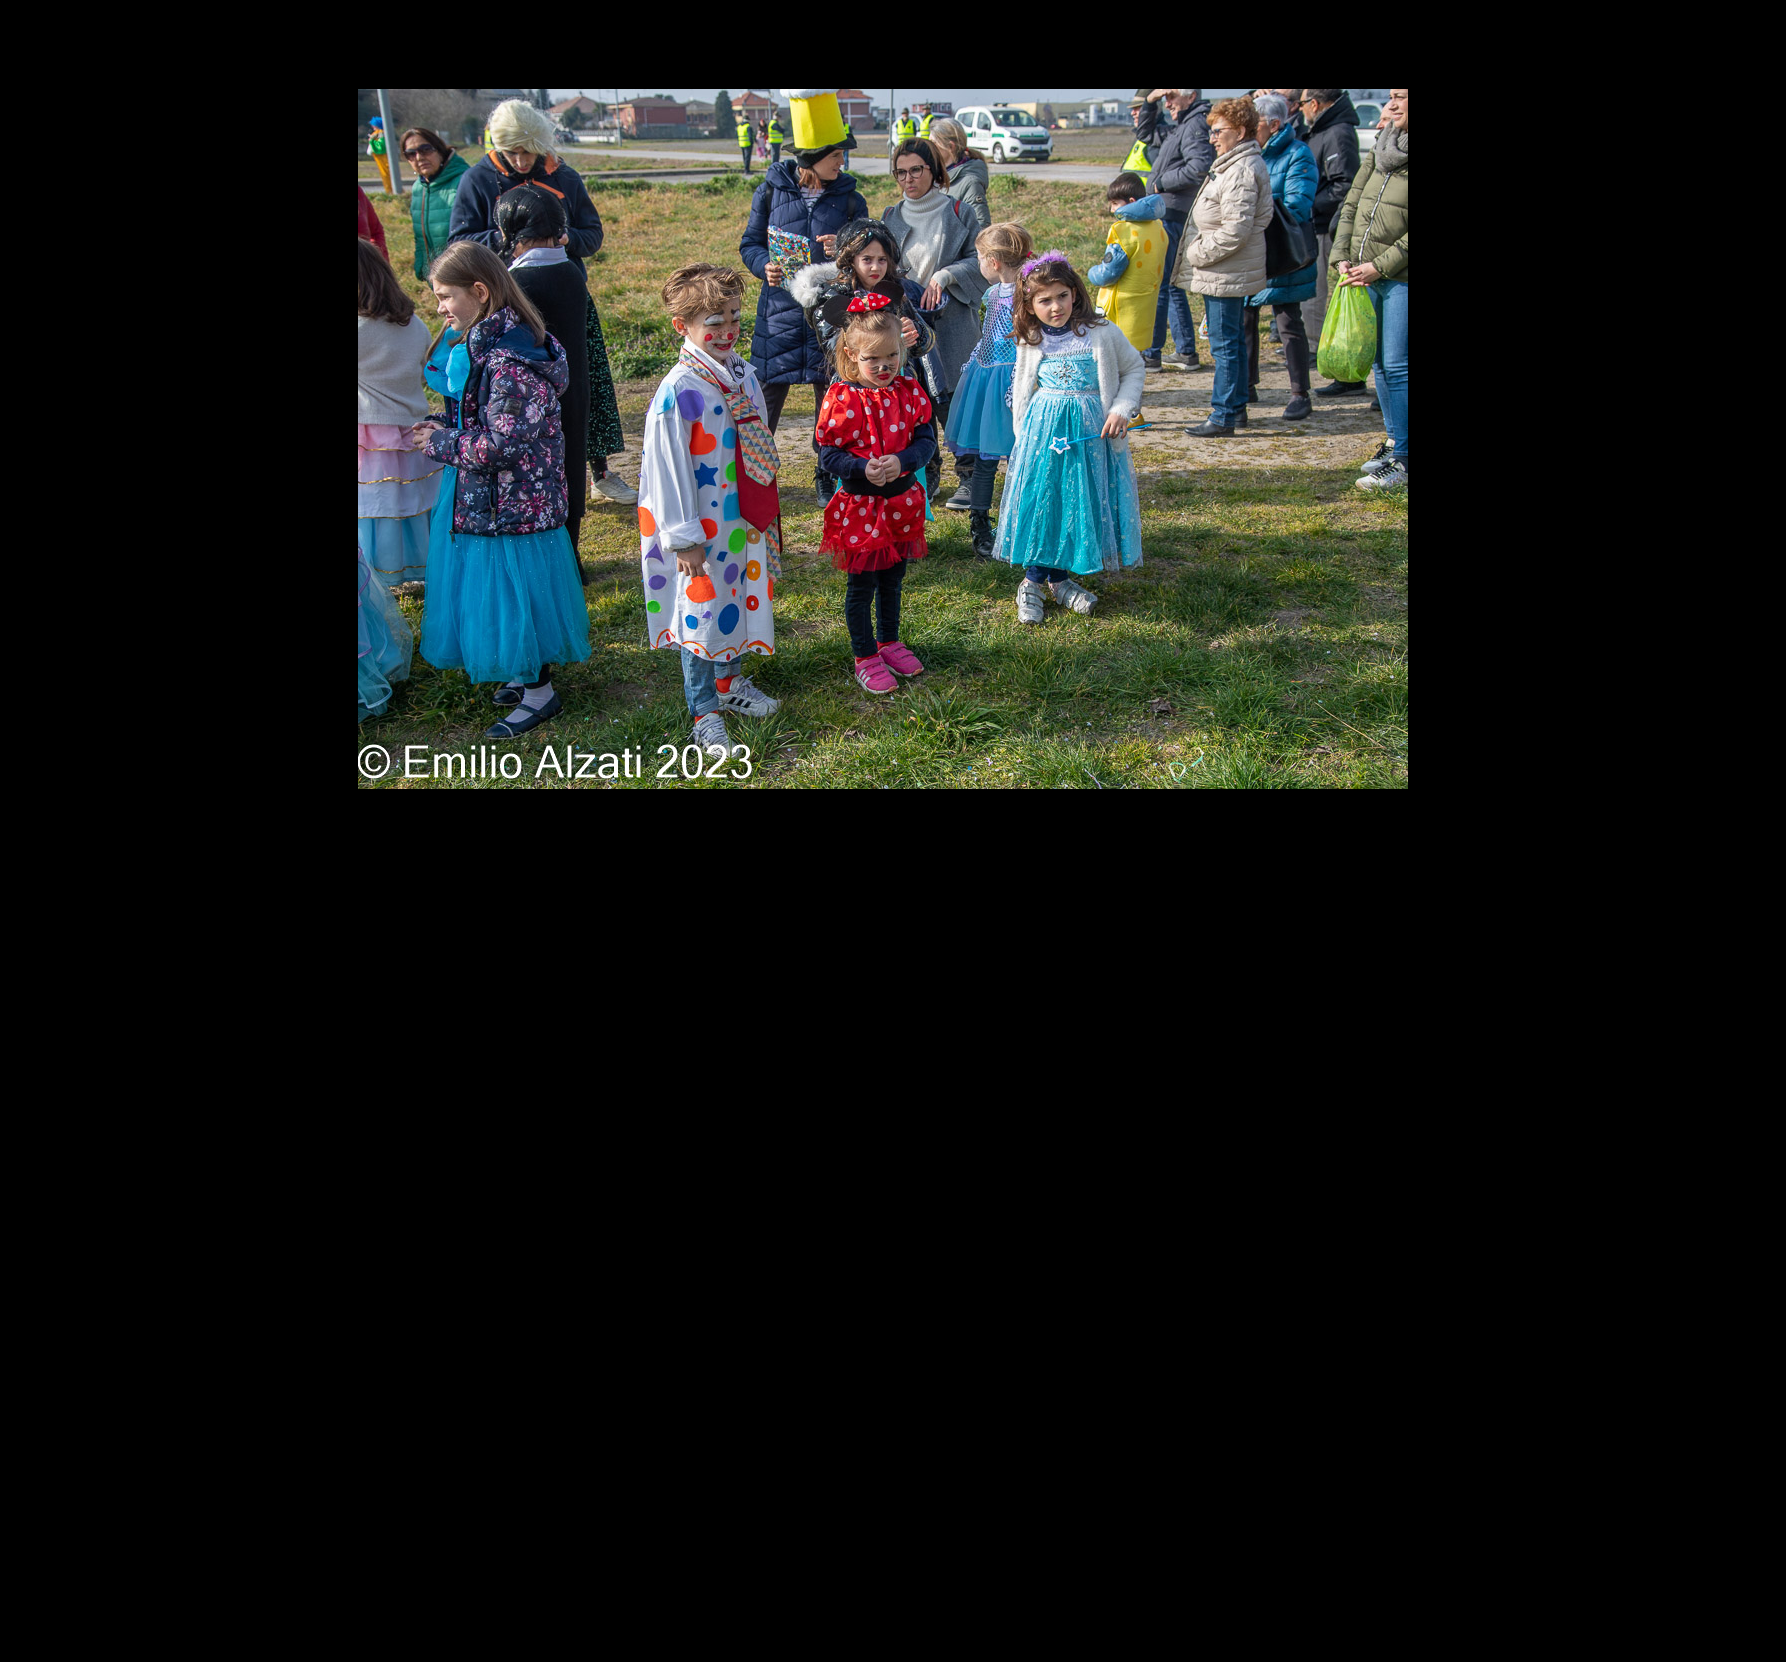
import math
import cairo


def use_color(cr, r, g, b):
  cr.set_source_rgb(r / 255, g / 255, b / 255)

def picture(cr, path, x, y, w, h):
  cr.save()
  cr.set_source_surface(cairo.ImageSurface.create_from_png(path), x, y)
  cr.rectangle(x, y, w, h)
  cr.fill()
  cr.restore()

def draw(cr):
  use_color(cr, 0, 0, 0)
  cr.paint()
  picture(cr, "img_01.png", 358, 89, 1050, 700)


surface = cairo.ImageSurface(cairo.FORMAT_RGB24, 1786, 1662)
cr = cairo.Context(surface)
options = cairo.FontOptions()
options.set_hint_metrics(cairo.HINT_METRICS_OFF)
options.set_hint_style(cairo.HINT_STYLE_NONE)
cr.set_font_options(options)
cr.set_miter_limit(4)
draw(cr)
surface.write_to_png("out.png")
